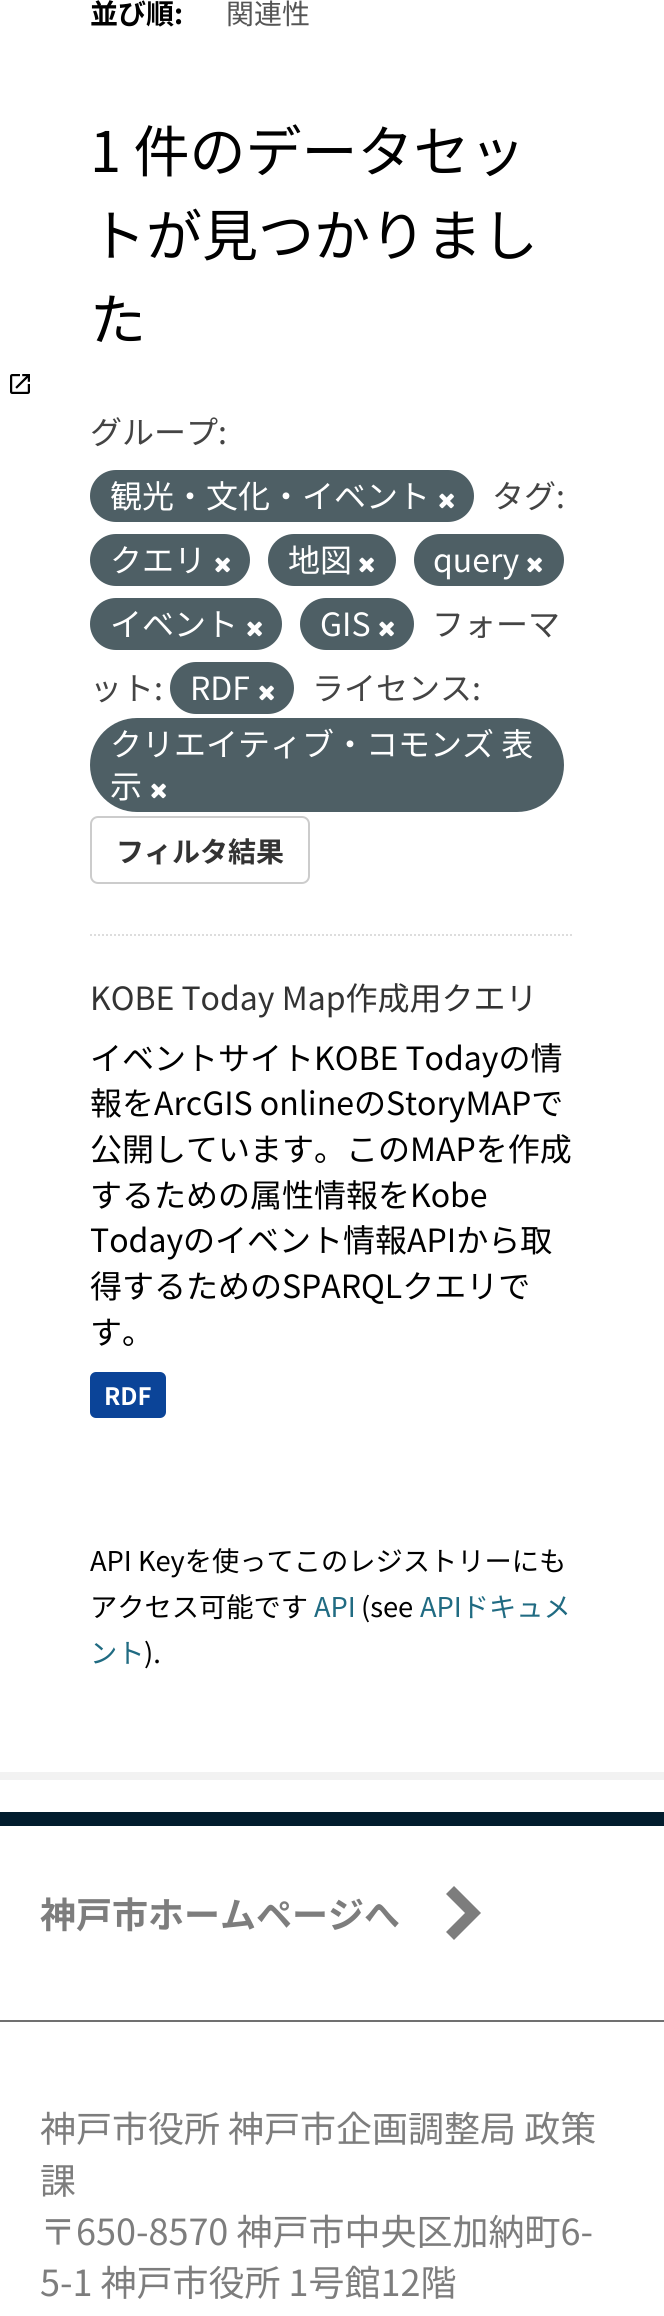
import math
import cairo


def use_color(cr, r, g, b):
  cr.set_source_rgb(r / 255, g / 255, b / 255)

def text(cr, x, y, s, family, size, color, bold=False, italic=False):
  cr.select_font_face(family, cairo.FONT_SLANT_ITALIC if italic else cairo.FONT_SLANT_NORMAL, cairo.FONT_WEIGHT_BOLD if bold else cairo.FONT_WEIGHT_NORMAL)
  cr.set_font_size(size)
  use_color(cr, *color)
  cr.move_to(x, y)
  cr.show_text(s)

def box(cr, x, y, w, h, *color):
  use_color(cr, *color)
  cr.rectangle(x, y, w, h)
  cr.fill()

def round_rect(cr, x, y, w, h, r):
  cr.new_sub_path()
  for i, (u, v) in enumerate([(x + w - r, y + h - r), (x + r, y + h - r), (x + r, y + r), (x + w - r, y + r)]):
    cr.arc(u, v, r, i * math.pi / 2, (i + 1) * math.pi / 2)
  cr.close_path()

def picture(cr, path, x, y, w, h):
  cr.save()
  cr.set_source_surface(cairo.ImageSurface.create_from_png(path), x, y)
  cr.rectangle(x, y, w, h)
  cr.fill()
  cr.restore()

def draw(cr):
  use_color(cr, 255, 255, 255)
  cr.paint()
  cr.rectangle(-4, -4, 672, 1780)
  use_color(cr, 242, 242, 242)
  cr.set_line_width(8)
  cr.stroke()
  picture(cr, "img_01.png", 10, 374, 20, 20)
  cr.new_path()
  cr.move_to(90, 935)
  cr.line_to(574, 935)
  use_color(cr, 221, 221, 221)
  cr.set_line_width(2)
  cr.set_dash([2, 2])
  cr.stroke()
  use_color(cr, 78, 95, 101)
  round_rect(cr, 90, 470, 384, 52, 26)
  cr.fill()
  picture(cr, "img_02.png", 439, 493, 15, 16)
  round_rect(cr, 90, 534, 160, 52, 26)
  cr.fill()
  picture(cr, "img_02.png", 215, 557, 15, 16)
  round_rect(cr, 268, 534, 128, 52, 26)
  cr.fill()
  picture(cr, "img_02.png", 359, 557, 15, 16)
  round_rect(cr, 414, 534, 150, 52, 26)
  cr.fill()
  picture(cr, "img_02.png", 527, 557, 15, 16)
  round_rect(cr, 90, 598, 192, 52, 26)
  cr.fill()
  picture(cr, "img_02.png", 247, 621, 15, 16)
  round_rect(cr, 300, 598, 114, 52, 26)
  cr.fill()
  picture(cr, "img_02.png", 379, 621, 15, 16)
  round_rect(cr, 170, 662, 124, 52, 26)
  cr.fill()
  picture(cr, "img_02.png", 259, 685, 15, 16)
  round_rect(cr, 90, 718, 474, 94, 47)
  cr.fill()
  picture(cr, "img_02.png", 151, 783, 15, 16)
  round_rect(cr, 91, 817, 218, 66, 7)
  use_color(cr, 204, 204, 204)
  cr.set_dash([])
  cr.stroke()
  use_color(cr, 11, 68, 152)
  round_rect(cr, 90, 1372, 76, 46, 6)
  cr.fill()
  box(cr, 0, 1812, 664, 14, 2, 29, 46)
  use_color(cr, 125, 125, 125)
  cr.new_path()
  cr.move_to(481, 1913)
  cr.line_to(454, 1940)
  cr.line_to(446, 1932)
  cr.line_to(465, 1913)
  cr.line_to(446, 1894)
  cr.line_to(454, 1886)
  cr.close_path()
  cr.fill()
  box(cr, 0, 2020, 664, 2, 112, 112, 112)
  text(cr, 90, 24, "並び順:", "Noto Sans JP", 28, (0, 0, 0), bold=True)
  text(cr, 226, 24, "関連性", "Noto Sans JP", 28, (85, 85, 85))
  text(cr, 90, 172, "1 件のデータセッ", "Noto Sans JP", 56, (0, 0, 0))
  text(cr, 90, 256, "トが見つかりまし", "Noto Sans JP", 56, (0, 0, 0))
  text(cr, 90, 340, "た", "Noto Sans JP", 56, (0, 0, 0))
  text(cr, 90, 444, "グループ:", "Noto Sans JP", 32, (68, 68, 68))
  text(cr, 110, 508, "観光・文化・イベント", "Noto Sans JP", 32, (255, 255, 255))
  text(cr, 492, 508, "タグ:", "Noto Sans JP", 32, (68, 68, 68))
  text(cr, 110, 572, "クエリ", "Noto Sans JP", 32, (255, 255, 255))
  text(cr, 288, 572, "地図", "Noto Sans JP", 32, (255, 255, 255))
  text(cr, 433, 572, "query", "Noto Sans JP", 32, (255, 255, 255))
  text(cr, 110, 636, "イベント", "Noto Sans JP", 32, (255, 255, 255))
  text(cr, 320, 636, "GIS", "Noto Sans JP", 32, (255, 255, 255))
  text(cr, 432, 636, "フォーマ", "Noto Sans JP", 32, (68, 68, 68))
  text(cr, 90, 700, "ット:", "Noto Sans JP", 32, (68, 68, 68))
  text(cr, 190, 700, "RDF", "Noto Sans JP", 32, (255, 255, 255))
  text(cr, 312, 700, "ライセンス:", "Noto Sans JP", 32, (68, 68, 68))
  text(cr, 110, 756, "クリエイティブ・コモンズ 表", "Noto Sans JP", 32, (255, 255, 255))
  text(cr, 110, 798, "示", "Noto Sans JP", 32, (255, 255, 255))
  text(cr, 116, 862, "フィルタ結果", "Noto Sans JP", 28, (51, 51, 51), bold=True)
  text(cr, 90, 1010, "KOBE Today Map作成用クエリ", "Noto Sans JP", 32, (51, 51, 51))
  text(cr, 90, 1070, "イベントサイトKOBE Todayの情", "Noto Sans JP", 32, (0, 0, 0))
  text(cr, 90, 1115, "報をArcGIS onlineのStoryMAPで", "Noto Sans JP", 32, (0, 0, 0))
  text(cr, 90, 1161, "公開しています。このMAPを作成", "Noto Sans JP", 32, (0, 0, 0))
  text(cr, 90, 1207, "するための属性情報をKobe", "Noto Sans JP", 32, (0, 0, 0))
  text(cr, 90, 1252, "Todayのイベント情報APIから取", "Noto Sans JP", 32, (0, 0, 0))
  text(cr, 90, 1298, "得するためのSPARQLクエリで", "Noto Sans JP", 32, (0, 0, 0))
  text(cr, 90, 1344, "す。", "Noto Sans JP", 32, (0, 0, 0))
  text(cr, 104, 1405, "RDF", "Noto Sans JP", 24, (255, 255, 255), bold=True)
  text(cr, 90, 1571, "API Keyを使ってこのレジストリーにも", "Noto Sans JP", 27.25, (0, 0, 0))
  text(cr, 90, 1617, "アクセス可能です", "Noto Sans JP", 27.25, (0, 0, 0))
  text(cr, 314, 1617, "API", "Noto Sans JP", 27.25, (32, 107, 130))
  text(cr, 361, 1617, "(see", "Noto Sans JP", 27.25, (0, 0, 0))
  text(cr, 420, 1617, "APIドキュメ", "Noto Sans JP", 27.25, (32, 107, 130))
  text(cr, 90, 1663, "ント", "Noto Sans JP", 27.25, (32, 107, 130))
  text(cr, 144, 1663, ").", "Noto Sans JP", 27.25, (0, 0, 0))
  text(cr, 40, 1928, "神戸市ホームページへ", "Noto Sans JP", 36, (125, 125, 125), bold=True)
  text(cr, 40, 2142, "神戸市役所 神戸市企画調整局 政策", "Noto Sans JP", 36, (125, 125, 125))
  text(cr, 40, 2194, "課", "Noto Sans JP", 36, (125, 125, 125))
  text(cr, 40, 2245, "〒650-8570 神戸市中央区加納町6-", "Noto Sans JP", 36, (125, 125, 125))
  text(cr, 40, 2296, "5-1 神戸市役所 1号館12階", "Noto Sans JP", 36, (125, 125, 125))


surface = cairo.ImageSurface(cairo.FORMAT_RGB24, 664, 2316)
cr = cairo.Context(surface)
options = cairo.FontOptions()
options.set_hint_metrics(cairo.HINT_METRICS_OFF)
options.set_hint_style(cairo.HINT_STYLE_NONE)
cr.set_font_options(options)
cr.set_miter_limit(4)
draw(cr)
surface.write_to_png("out.png")
